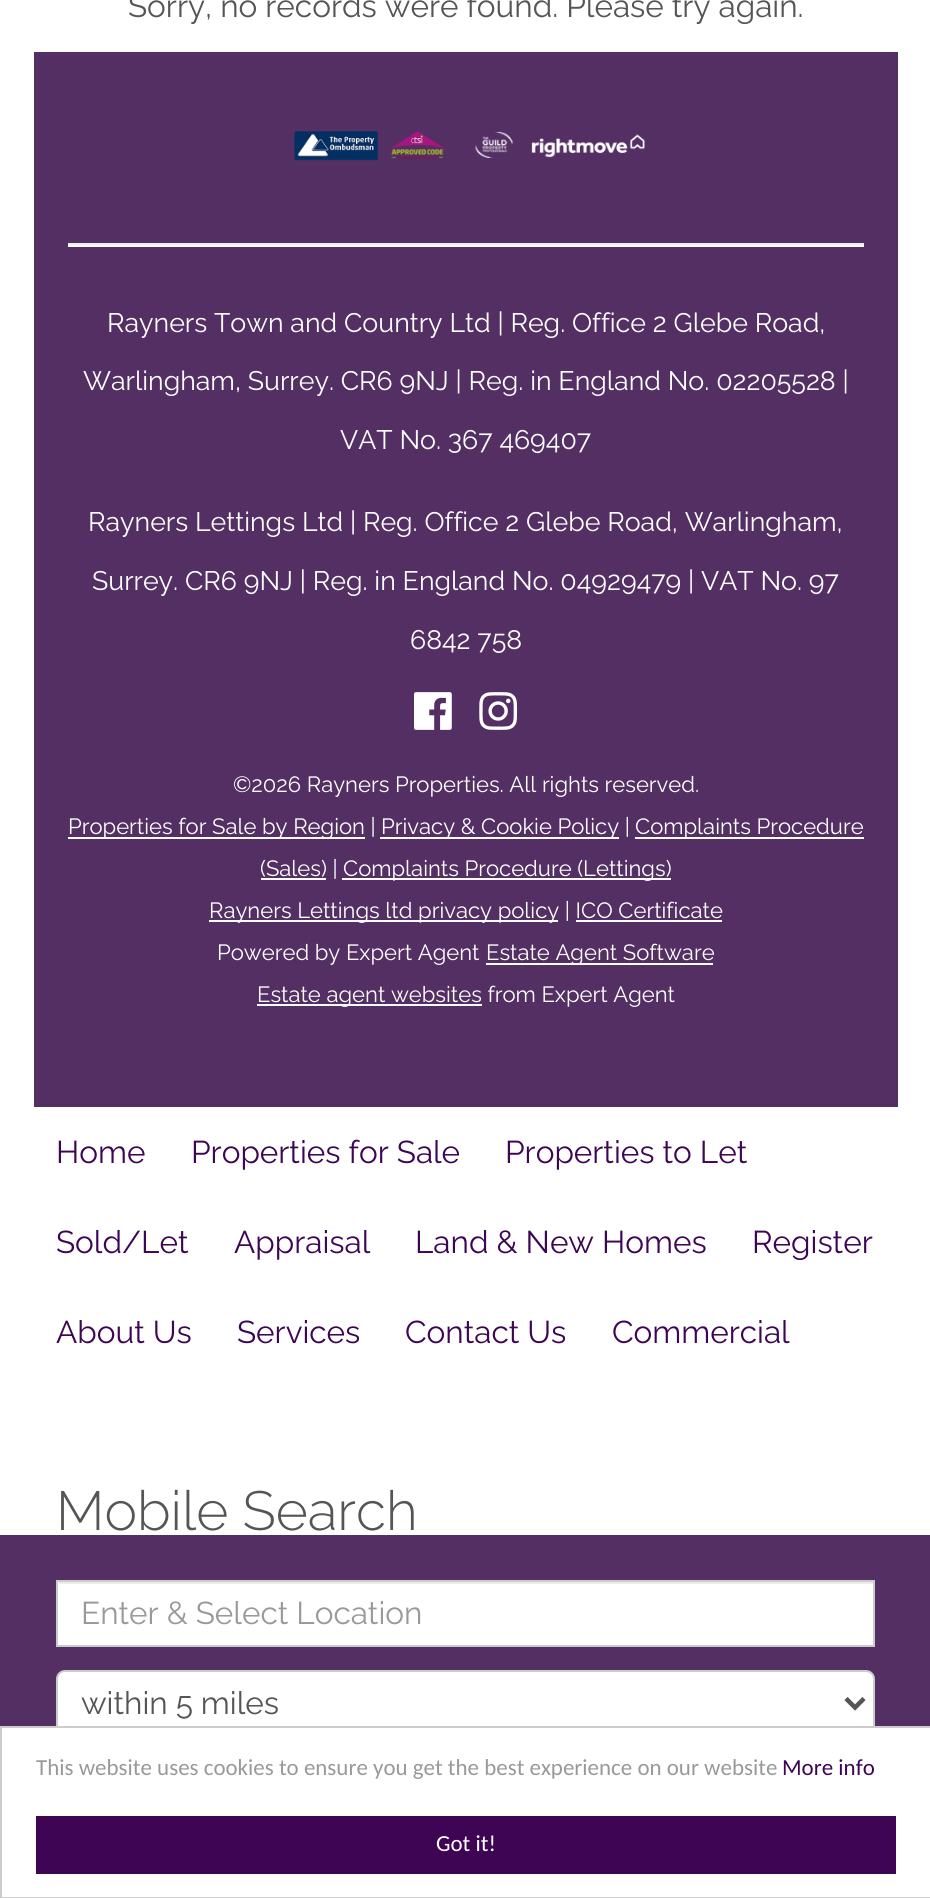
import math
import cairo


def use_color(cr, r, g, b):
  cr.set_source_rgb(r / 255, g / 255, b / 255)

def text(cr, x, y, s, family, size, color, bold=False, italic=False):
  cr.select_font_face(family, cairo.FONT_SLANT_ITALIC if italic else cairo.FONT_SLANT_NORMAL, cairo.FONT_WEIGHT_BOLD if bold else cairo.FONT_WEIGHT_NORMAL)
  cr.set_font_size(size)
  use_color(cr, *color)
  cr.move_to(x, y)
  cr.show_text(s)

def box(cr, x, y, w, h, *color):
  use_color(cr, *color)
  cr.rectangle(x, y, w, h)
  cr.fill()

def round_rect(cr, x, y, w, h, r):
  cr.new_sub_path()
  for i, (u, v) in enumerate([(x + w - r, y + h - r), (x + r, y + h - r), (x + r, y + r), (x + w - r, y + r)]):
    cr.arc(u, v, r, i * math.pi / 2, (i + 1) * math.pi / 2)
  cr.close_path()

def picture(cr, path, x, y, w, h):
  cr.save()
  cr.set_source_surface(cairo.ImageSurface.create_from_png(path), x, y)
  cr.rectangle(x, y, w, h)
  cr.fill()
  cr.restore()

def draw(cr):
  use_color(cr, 84, 47, 99)
  cr.paint()
  box(cr, 0, 0, 930, 1535, 255, 255, 255)
  box(cr, 34, 52, 864, 1055, 84, 47, 99)
  picture(cr, "img_01.png", 294, 131, 351, 30)
  box(cr, 68, 243, 796, 2, 238, 238, 238)
  box(cr, 68, 245, 796, 2, 255, 255, 255)
  picture(cr, "img_02.png", 414, 692, 38, 38)
  picture(cr, "img_03.png", 479, 692, 39, 38)
  box(cr, 68, 837, 297, 2, 255, 255, 255)
  box(cr, 380, 837, 239, 2, 255, 255, 255)
  box(cr, 635, 837, 229, 2, 255, 255, 255)
  box(cr, 261, 878, 65, 2, 255, 255, 255)
  box(cr, 342, 878, 329, 2, 255, 255, 255)
  box(cr, 209, 920, 349, 2, 255, 255, 255)
  box(cr, 576, 920, 146, 2, 255, 255, 255)
  box(cr, 486, 963, 227, 2, 255, 255, 255)
  box(cr, 257, 1004, 225, 2, 255, 255, 255)
  box(cr, 58, 1582, 815, 63, 255, 255, 255)
  box(cr, 59, 1582, 814, 2, 236, 236, 236)
  cr.rectangle(57, 1581, 817, 65)
  use_color(cr, 204, 204, 204)
  cr.stroke()
  use_color(cr, 255, 255, 255)
  round_rect(cr, 57, 1671, 817, 65, 8)
  cr.fill_preserve()
  use_color(cr, 204, 204, 204)
  cr.stroke()
  cr.new_path()
  cr.move_to(846, 1698.5)
  cr.line_to(855, 1707.5)
  cr.line_to(864, 1698.5)
  use_color(cr, 85, 85, 85)
  cr.set_line_width(4.5)
  cr.stroke()
  use_color(cr, 255, 255, 255)
  cr.rectangle(1, 1727, 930, 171)
  cr.fill_preserve()
  use_color(cr, 204, 204, 204)
  cr.set_line_width(2)
  cr.stroke()
  box(cr, 36, 1816, 860, 58, 62, 5, 85)
  text(cr, 128, 17, "Sorry, no records were found. Please try again.", "Raleway", 31.5, (85, 85, 85))
  text(cr, 107, 332, "Rayners Town and Country Ltd | Reg. Office 2 Glebe Road,", "Raleway", 26.75, (255, 255, 255))
  text(cr, 83, 390, "Warlingham, Surrey. CR6 9NJ | Reg. in England No. 02205528 |", "Raleway", 26.75, (255, 255, 255))
  text(cr, 340, 449, "VAT No. 367 469407", "Raleway", 26.75, (255, 255, 255))
  text(cr, 88, 531, "Rayners Lettings Ltd | Reg. Office 2 Glebe Road, Warlingham,", "Raleway", 26.75, (255, 255, 255))
  text(cr, 92, 590, "Surrey. CR6 9NJ | Reg. in England No. 04929479 | VAT No. 97", "Raleway", 26.75, (255, 255, 255))
  text(cr, 410, 649, "6842 758", "Raleway", 26.75, (255, 255, 255))
  text(cr, 233, 792, "©2026 Rayners Properties. All rights reserved.", "Raleway", 22.05, (255, 255, 255))
  text(cr, 68, 834, "Properties for Sale by Region |", "Raleway", 22.05, (255, 255, 255))
  text(cr, 381, 834, "Privacy & Cookie Policy |", "Raleway", 22.05, (255, 255, 255))
  text(cr, 635, 834, "Complaints Procedure", "Raleway", 22.05, (255, 255, 255))
  text(cr, 260, 876, "(Sales) |", "Raleway", 22.05, (255, 255, 255))
  text(cr, 343, 876, "Complaints Procedure (Lettings)", "Raleway", 22.05, (255, 255, 255))
  text(cr, 209, 918, "Rayners Lettings ltd privacy policy | ICO Certificate", "Raleway", 22.05, (255, 255, 255))
  text(cr, 217, 960, "Powered by Expert Agent", "Raleway", 22.05, (255, 255, 255))
  text(cr, 486, 960, "Estate Agent Software", "Raleway", 22.05, (255, 255, 255))
  text(cr, 257, 1002, "Estate agent websites from Expert Agent", "Raleway", 22.05, (255, 255, 255))
  text(cr, 56, 1163, "Home", "Raleway", 31.5, (62, 5, 85))
  text(cr, 191, 1163, "Properties for Sale", "Raleway", 31.5, (62, 5, 85))
  text(cr, 505, 1163, "Properties to Let", "Raleway", 31.5, (62, 5, 85))
  text(cr, 56, 1253, "Sold/Let", "Raleway", 31.5, (62, 5, 85))
  text(cr, 234, 1253, "Appraisal", "Raleway", 31.5, (62, 5, 85))
  text(cr, 415, 1253, "Land & New Homes", "Raleway", 31.5, (62, 5, 85))
  text(cr, 752, 1253, "Register", "Raleway", 31.5, (62, 5, 85))
  text(cr, 56, 1343, "About Us", "Raleway", 31.5, (62, 5, 85))
  text(cr, 237, 1343, "Services", "Raleway", 31.5, (62, 5, 85))
  text(cr, 405, 1343, "Contact Us", "Raleway", 31.5, (62, 5, 85))
  text(cr, 612, 1343, "Commercial", "Raleway", 31.5, (62, 5, 85))
  text(cr, 56, 1530, "Mobile Search", "Raleway Light", 55, (85, 85, 85))
  text(cr, 81, 1624, "Enter & Select Location", "Raleway", 31.5, (153, 153, 153))
  text(cr, 81, 1714, "within 5 miles", "Raleway", 31.5, (85, 85, 85))
  text(cr, 36, 1775, "This website uses cookies to ensure you get the best experience on our website", "Carlito", 22.95, (153, 153, 153))
  text(cr, 782, 1775, "More info", "Carlito", 22.95, (62, 5, 85))
  text(cr, 436, 1851, "Got it!", "Carlito", 22.95, (255, 255, 255))


surface = cairo.ImageSurface(cairo.FORMAT_RGB24, 930, 1898)
cr = cairo.Context(surface)
options = cairo.FontOptions()
options.set_hint_metrics(cairo.HINT_METRICS_OFF)
options.set_hint_style(cairo.HINT_STYLE_NONE)
cr.set_font_options(options)
cr.set_miter_limit(4)
draw(cr)
surface.write_to_png("out.png")
